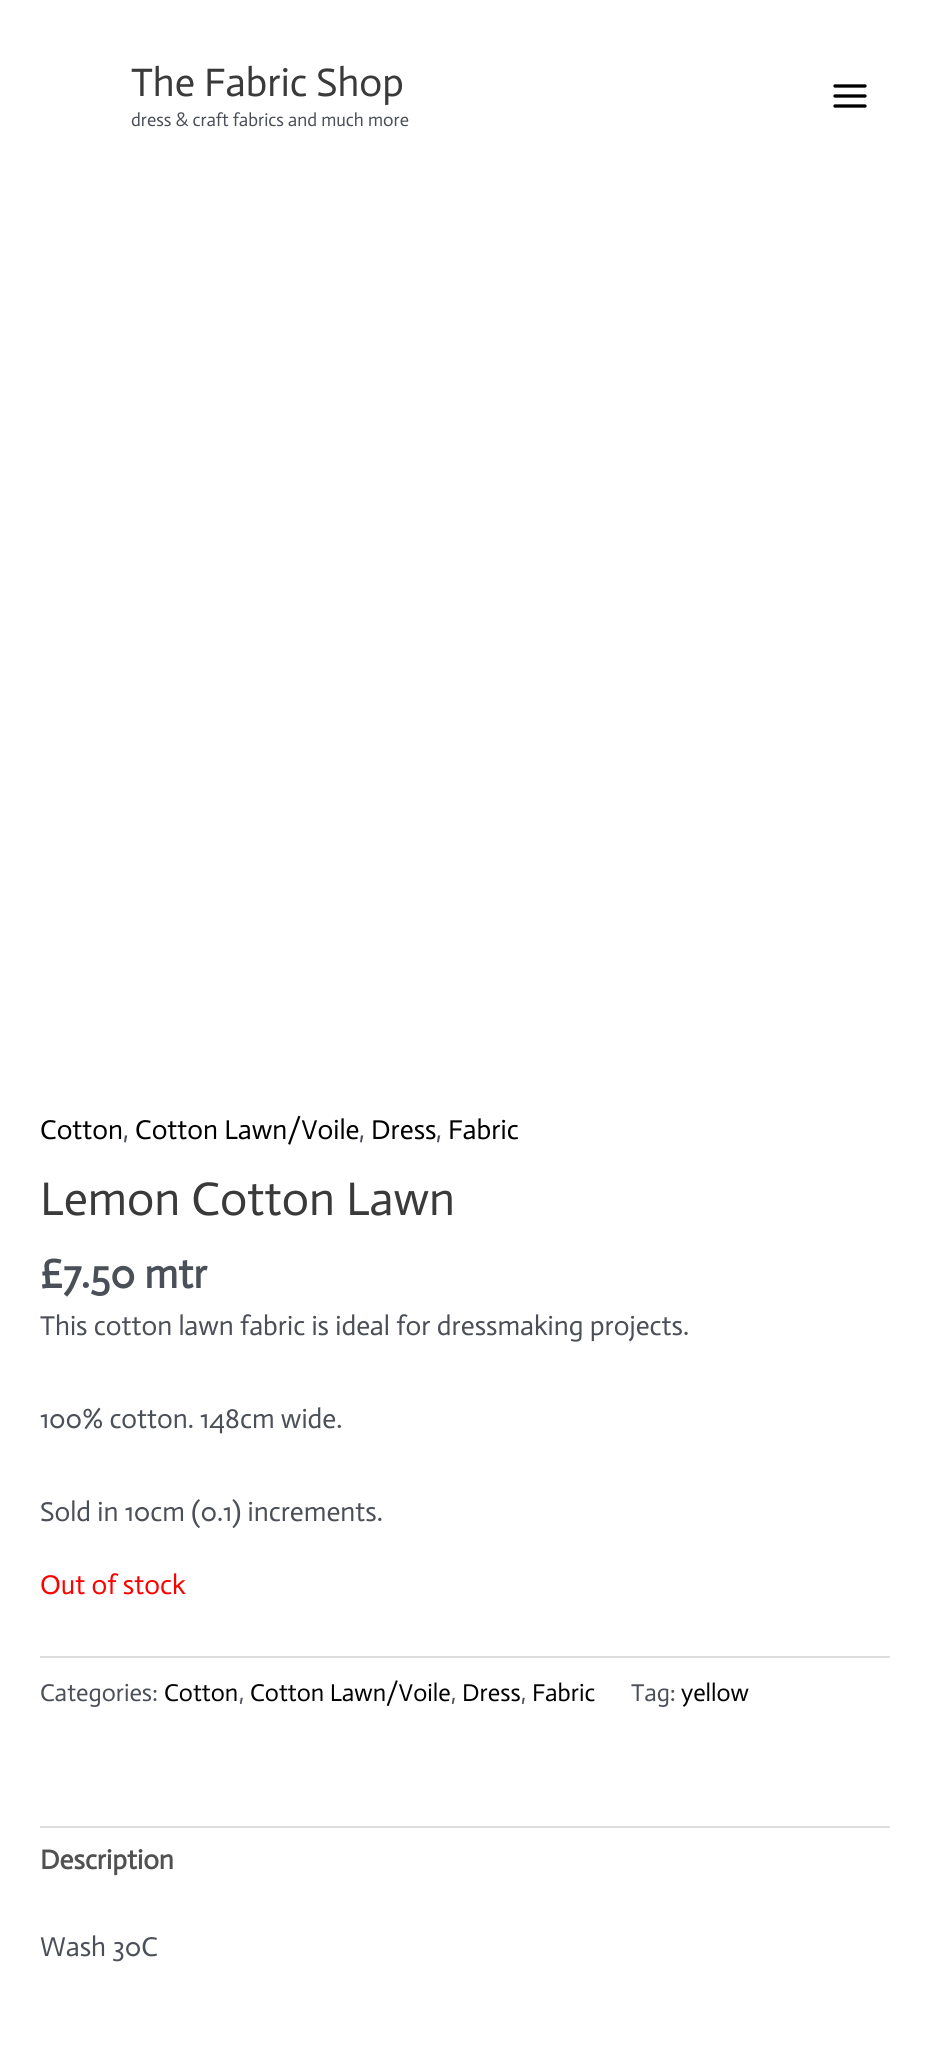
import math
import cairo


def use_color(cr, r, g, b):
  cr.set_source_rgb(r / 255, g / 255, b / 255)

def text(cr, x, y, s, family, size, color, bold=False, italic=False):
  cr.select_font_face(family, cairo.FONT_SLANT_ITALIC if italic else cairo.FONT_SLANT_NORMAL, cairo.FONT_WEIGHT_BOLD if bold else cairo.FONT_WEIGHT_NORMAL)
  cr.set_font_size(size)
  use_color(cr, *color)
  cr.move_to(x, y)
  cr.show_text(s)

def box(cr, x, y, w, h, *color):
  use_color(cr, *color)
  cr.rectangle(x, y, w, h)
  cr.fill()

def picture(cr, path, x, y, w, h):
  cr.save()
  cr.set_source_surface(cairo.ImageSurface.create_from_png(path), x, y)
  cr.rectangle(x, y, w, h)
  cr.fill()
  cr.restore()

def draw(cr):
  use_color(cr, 255, 255, 255)
  cr.paint()
  picture(cr, "img_01.png", 833, 84, 34, 24)
  box(cr, 40, 1656, 850, 2, 221, 221, 221)
  box(cr, 40, 1826, 850, 2, 221, 221, 221)
  text(cr, 131, 96, "The Fabric Shop", "Actor", 40, (58, 58, 58))
  text(cr, 131, 126, "dress & craft fabrics and much more", "Actor", 18.25, (75, 79, 88))
  text(cr, 40, 1139, "Cotton", "Actor", 27.4, (0, 0, 0))
  text(cr, 123, 1139, ",", "Actor", 27.4, (75, 79, 88))
  text(cr, 135, 1139, "Cotton Lawn/Voile", "Actor", 27.4, (0, 0, 0))
  text(cr, 359, 1139, ",", "Actor", 27.4, (75, 79, 88))
  text(cr, 371, 1139, "Dress", "Actor", 27.4, (0, 0, 0))
  text(cr, 436, 1139, ",", "Actor", 27.4, (75, 79, 88))
  text(cr, 448, 1139, "Fabric", "Actor", 27.4, (0, 0, 0))
  text(cr, 40, 1215, "Lemon Cotton Lawn", "Actor", 47.5, (58, 58, 58))
  text(cr, 40, 1288, "£7.50 mtr", "Actor", 41, (75, 79, 88), bold=True)
  text(cr, 40, 1335, "This cotton lawn fabric is ideal for dressmaking projects.", "Actor", 27.4, (75, 79, 88))
  text(cr, 40, 1428, "100% cotton. 148cm wide.", "Actor", 27.4, (75, 79, 88))
  text(cr, 40, 1521, "Sold in 10cm (0.1) increments.", "Actor", 27.4, (75, 79, 88))
  text(cr, 40, 1594, "Out of stock", "Actor", 27.4, (255, 0, 0))
  text(cr, 40, 1701, "Categories:", "Actor", 24.5, (75, 79, 88))
  text(cr, 164, 1701, "Cotton", "Actor", 24.5, (0, 0, 0))
  text(cr, 239, 1701, ",", "Actor", 24.5, (75, 79, 88))
  text(cr, 250, 1701, "Cotton Lawn/Voile", "Actor", 24.5, (0, 0, 0))
  text(cr, 451, 1701, ",", "Actor", 24.5, (75, 79, 88))
  text(cr, 462, 1701, "Dress", "Actor", 24.5, (0, 0, 0))
  text(cr, 521, 1701, ",", "Actor", 24.5, (75, 79, 88))
  text(cr, 532, 1701, "Fabric", "Actor", 24.5, (0, 0, 0))
  text(cr, 631, 1701, "Tag:", "Actor", 24.5, (75, 79, 88))
  text(cr, 681, 1701, "yellow", "Actor", 24.5, (0, 0, 0))
  text(cr, 40, 1869, "Description", "Actor", 27.4, (81, 81, 81), bold=True)
  text(cr, 40, 1956, "Wash 30C", "Actor", 27.4, (75, 79, 88))


surface = cairo.ImageSurface(cairo.FORMAT_RGB24, 929, 2070)
cr = cairo.Context(surface)
options = cairo.FontOptions()
options.set_hint_metrics(cairo.HINT_METRICS_OFF)
options.set_hint_style(cairo.HINT_STYLE_NONE)
cr.set_font_options(options)
cr.set_miter_limit(4)
draw(cr)
surface.write_to_png("out.png")
